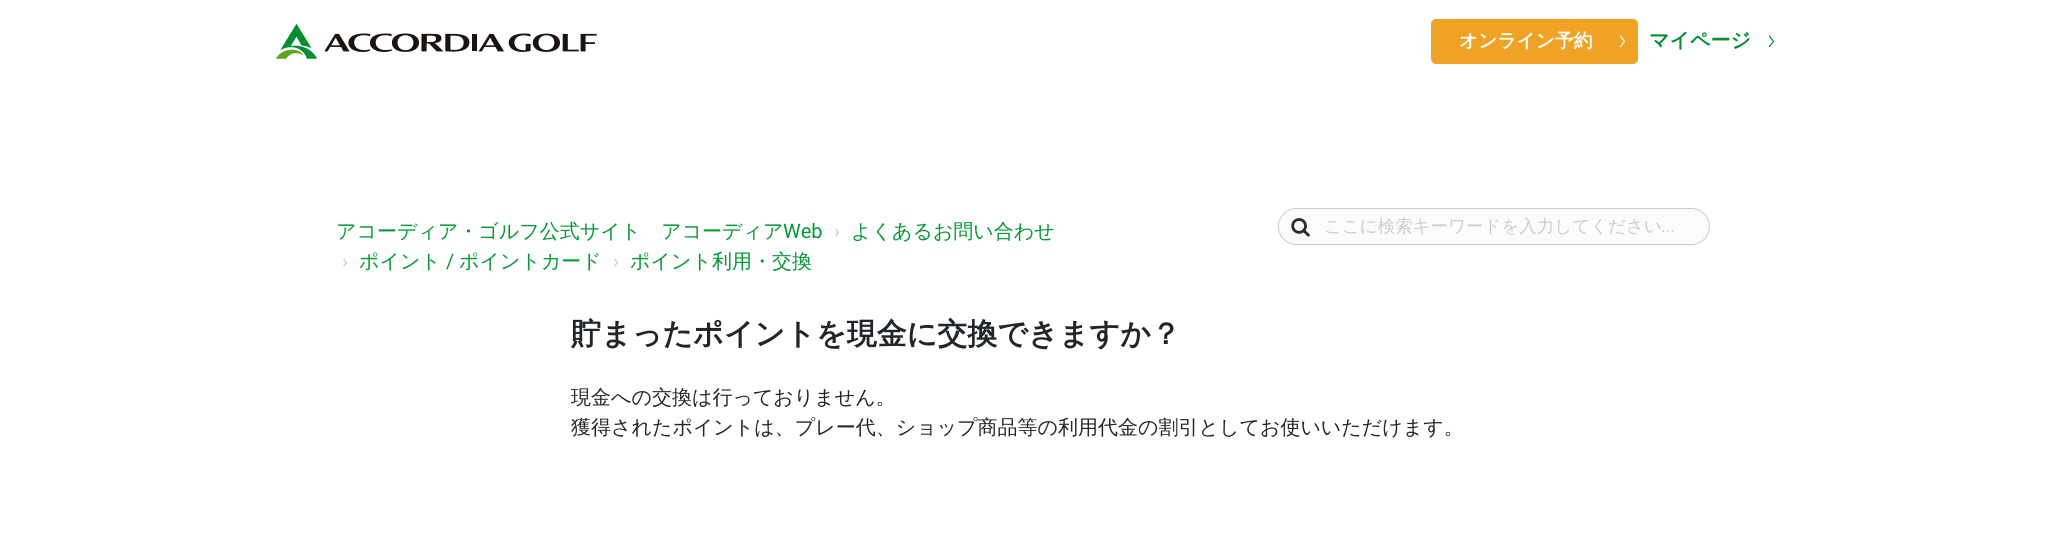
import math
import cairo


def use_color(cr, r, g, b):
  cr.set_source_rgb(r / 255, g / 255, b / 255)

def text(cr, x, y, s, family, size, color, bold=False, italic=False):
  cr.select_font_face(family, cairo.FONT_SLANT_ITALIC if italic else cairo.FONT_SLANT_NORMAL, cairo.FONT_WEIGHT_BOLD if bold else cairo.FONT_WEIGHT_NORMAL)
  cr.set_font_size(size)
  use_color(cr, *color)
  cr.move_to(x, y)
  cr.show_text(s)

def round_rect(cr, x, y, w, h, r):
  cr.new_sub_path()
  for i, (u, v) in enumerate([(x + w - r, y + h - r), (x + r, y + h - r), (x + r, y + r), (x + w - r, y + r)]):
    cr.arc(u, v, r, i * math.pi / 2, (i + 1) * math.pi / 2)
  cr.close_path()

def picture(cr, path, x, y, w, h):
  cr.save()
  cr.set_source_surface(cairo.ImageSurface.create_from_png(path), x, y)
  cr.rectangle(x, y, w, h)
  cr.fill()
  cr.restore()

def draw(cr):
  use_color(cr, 255, 255, 255)
  cr.paint()
  picture(cr, "img_01.png", 275, 24, 322, 35)
  use_color(cr, 240, 162, 37)
  round_rect(cr, 1431, 19, 207, 45, 5)
  cr.fill()
  cr.save()
  cr.rectangle(1620, 33, 5, 17)
  cr.clip()
  cr.new_path()
  cr.move_to(1620, 47)
  cr.line_to(1624.5, 41.5)
  cr.line_to(1620, 35.5)
  use_color(cr, 255, 255, 255)
  cr.set_line_width(1.2)
  cr.stroke()
  cr.restore()
  cr.save()
  cr.rectangle(1769, 33, 5, 17)
  cr.clip()
  cr.new_path()
  cr.move_to(1769, 47)
  cr.line_to(1773.5, 41.5)
  cr.line_to(1769, 35.5)
  use_color(cr, 0, 141, 49)
  cr.set_line_width(1.2)
  cr.stroke()
  cr.restore()
  use_color(cr, 249, 251, 253)
  round_rect(cr, 1278.5, 208.5, 431, 36, 18)
  cr.fill_preserve()
  use_color(cr, 204, 204, 204)
  cr.set_line_width(1)
  cr.stroke()
  picture(cr, "img_02.png", 1291, 218, 19, 19)
  text(cr, 1459, 47, "オンライン予約", "WenQuanYi Zen Hei", 18.75, (255, 255, 255), bold=True)
  text(cr, 1649, 47, "マイページ", "WenQuanYi Zen Hei", 20, (0, 141, 49), bold=True)
  text(cr, 336, 238, "アコーディア・ゴルフ公式サイト　アコーディア", "WenQuanYi Zen Hei Medium", 20, (0, 153, 51))
  text(cr, 783, 238, "Web", "Roboto", 20, (0, 153, 51))
  text(cr, 834, 238, "›", "Roboto", 20, (204, 204, 204))
  text(cr, 851, 238, "よくあるお問い合わせ", "WenQuanYi Zen Hei Medium", 20, (0, 153, 51))
  text(cr, 342, 268, "›", "Roboto", 20, (204, 204, 204))
  text(cr, 359, 268, "ポイント", "WenQuanYi Zen Hei Medium", 20, (0, 153, 51))
  text(cr, 446, 268, "/", "Roboto", 20, (0, 153, 51))
  text(cr, 459, 268, "ポイントカード", "WenQuanYi Zen Hei Medium", 20, (0, 153, 51))
  text(cr, 613, 268, "›", "Roboto", 20, (204, 204, 204))
  text(cr, 630, 268, "ポイント利用・交換", "WenQuanYi Zen Hei Medium", 20, (0, 153, 51))
  text(cr, 1324, 232, "ここに検索キーワードを入力してください", "WenQuanYi Zen Hei Medium", 17.5, (204, 204, 204))
  text(cr, 1661, 232, "...", "Roboto", 17.5, (204, 204, 204))
  text(cr, 571, 344, "貯まったポイントを現金に交換できますか？", "WenQuanYi Zen Hei", 30, (33, 37, 41), bold=True)
  text(cr, 571, 404, "現金への交換は行っておりません。", "WenQuanYi Zen Hei Medium", 20, (33, 37, 41))
  text(cr, 571, 434, "獲得されたポイントは、プレー代、ショップ商品等の利用代金の割引としてお使いいただけます。", "WenQuanYi Zen Hei Medium", 20, (33, 37, 41))


surface = cairo.ImageSurface(cairo.FORMAT_RGB24, 2046, 546)
cr = cairo.Context(surface)
options = cairo.FontOptions()
options.set_hint_metrics(cairo.HINT_METRICS_OFF)
options.set_hint_style(cairo.HINT_STYLE_NONE)
cr.set_font_options(options)
cr.set_miter_limit(4)
draw(cr)
surface.write_to_png("out.png")
